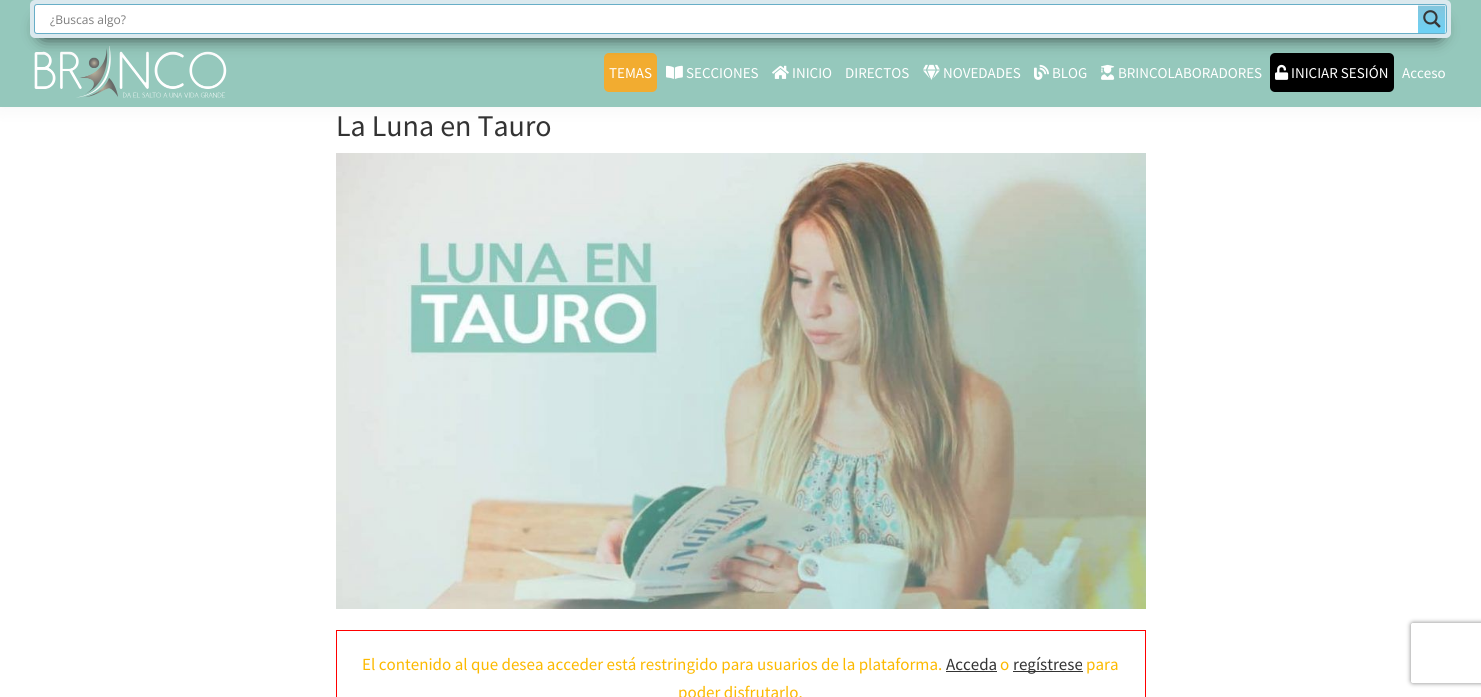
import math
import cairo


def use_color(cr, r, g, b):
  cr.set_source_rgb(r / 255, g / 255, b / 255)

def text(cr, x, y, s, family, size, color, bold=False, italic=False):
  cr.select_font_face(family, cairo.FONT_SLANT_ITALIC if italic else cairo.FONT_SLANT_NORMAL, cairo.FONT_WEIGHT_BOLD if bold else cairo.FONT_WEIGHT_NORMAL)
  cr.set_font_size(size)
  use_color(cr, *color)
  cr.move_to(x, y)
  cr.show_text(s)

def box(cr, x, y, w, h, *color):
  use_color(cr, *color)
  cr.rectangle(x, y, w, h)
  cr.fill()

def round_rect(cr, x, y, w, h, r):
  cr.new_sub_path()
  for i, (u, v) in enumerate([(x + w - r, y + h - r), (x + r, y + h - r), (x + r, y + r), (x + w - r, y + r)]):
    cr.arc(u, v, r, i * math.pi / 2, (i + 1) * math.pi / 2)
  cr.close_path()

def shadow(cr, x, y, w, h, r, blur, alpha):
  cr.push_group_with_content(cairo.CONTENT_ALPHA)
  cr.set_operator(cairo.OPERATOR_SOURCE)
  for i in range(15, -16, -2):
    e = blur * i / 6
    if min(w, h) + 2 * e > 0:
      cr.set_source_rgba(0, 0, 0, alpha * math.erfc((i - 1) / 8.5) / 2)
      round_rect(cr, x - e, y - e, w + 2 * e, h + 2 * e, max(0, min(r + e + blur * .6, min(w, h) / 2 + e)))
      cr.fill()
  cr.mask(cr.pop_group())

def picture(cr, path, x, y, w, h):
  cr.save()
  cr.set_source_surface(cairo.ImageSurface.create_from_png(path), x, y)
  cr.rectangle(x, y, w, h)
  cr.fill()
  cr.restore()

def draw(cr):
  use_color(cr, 255, 255, 255)
  cr.paint()
  use_color(cr, 0, 0, 0)
  shadow(cr, 0, 0, 1481, 107, 0, 10, 0.05)
  box(cr, 0, 0, 1481, 107, 149, 200, 188)
  picture(cr, "img_02.png", 34, 46, 193, 52)
  use_color(cr, 242, 172, 48)
  round_rect(cr, 604, 53, 53, 39, 5)
  cr.fill()
  use_color(cr, 0, 0, 0)
  round_rect(cr, 1270, 53, 124, 39, 5)
  cr.fill()
  use_color(cr, 0, 0, 0)
  shadow(cr, 43, 23, 1395, 12, 0, 9, 1)
  use_color(cr, 219, 233, 238)
  round_rect(cr, 30, 0, 1421, 38, 5)
  cr.fill()
  use_color(cr, 255, 255, 255)
  round_rect(cr, 34.5, 4.5, 1412, 29, 2.5)
  cr.fill_preserve()
  use_color(cr, 104, 174, 199)
  cr.set_line_width(1)
  cr.stroke()
  gradient = cairo.LinearGradient(1432, 5, 1432, 33)
  gradient.add_color_stop_rgba(0, 0.518, 0.773, 0.863, 1)
  gradient.add_color_stop_rgba(1, 0.424, 0.82, 0.961, 1)
  cr.set_source(gradient)
  cr.new_path()
  cr.move_to(1418, 5)
  cr.line_to(1444, 5)
  cr.curve_to(1445, 5, 1446, 6, 1446, 7)
  cr.line_to(1446, 31)
  cr.curve_to(1446, 32, 1445, 33, 1444, 33)
  cr.line_to(1418, 33)
  cr.close_path()
  cr.fill()
  cr.save()
  cr.rectangle(1418, 5, 28, 28)
  cr.clip()
  cr.set_source_rgba(1, 1, 1, 0.61)
  cr.new_path()
  cr.move_to(1417, 6)
  cr.line_to(1417, 33)
  cr.line_to(1319, 33)
  cr.line_to(1319, 5)
  cr.line_to(1445, 5)
  cr.line_to(1446, 7)
  cr.line_to(1446, 32)
  cr.line_to(1445, 33)
  cr.line_to(1445, 6)
  cr.close_path()
  cr.fill()
  cr.restore()
  picture(cr, "img_01.png", 1423, 10, 18, 18)
  picture(cr, "img_03.png", 666, 65, 17, 14)
  picture(cr, "img_04.png", 772, 65, 17, 14)
  picture(cr, "img_05.png", 923, 64, 17, 16)
  picture(cr, "img_06.png", 1034, 64, 15, 16)
  picture(cr, "img_07.png", 1101, 64, 14, 16)
  picture(cr, "img_08.png", 1275, 64, 14, 16)
  picture(cr, "img_09.png", 336, 153, 810, 456)
  cr.rectangle(336.5, 630.5, 809, 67)
  use_color(cr, 255, 0, 0)
  cr.stroke()
  box(cr, 946, 671, 51, 1, 51, 51, 51)
  box(cr, 1013, 671, 70, 1, 51, 51, 51)
  cr.save()
  cr.set_fill_rule(cairo.FILL_RULE_EVEN_ODD)
  cr.new_path()
  cr.move_to(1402, 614)
  cr.line_to(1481, 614)
  cr.line_to(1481, 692)
  cr.line_to(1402, 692)
  cr.close_path()
  cr.move_to(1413, 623)
  cr.line_to(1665, 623)
  cr.curve_to(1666, 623, 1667, 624, 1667, 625)
  cr.line_to(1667, 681)
  cr.curve_to(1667, 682, 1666, 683, 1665, 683)
  cr.line_to(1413, 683)
  cr.curve_to(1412, 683, 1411, 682, 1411, 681)
  cr.line_to(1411, 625)
  cr.curve_to(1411, 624, 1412, 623, 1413, 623)
  cr.close_path()
  cr.clip()
  use_color(cr, 128, 128, 128)
  shadow(cr, 1411, 623, 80, 60, 2, 2.5, 1)
  cr.restore()
  text(cr, 50, 24, "¿Buscas algo?", "Open Sans", 12, (125, 125, 125))
  text(cr, 609, 78, "TEMAS", "Source Sans Pro", 15, (255, 255, 255))
  text(cr, 686, 78, "SECCIONES", "Source Sans Pro", 15, (255, 255, 255))
  text(cr, 792, 78, "INICIO", "Source Sans Pro", 15, (255, 255, 255))
  text(cr, 845, 78, "DIRECTOS", "Source Sans Pro", 15, (255, 255, 255))
  text(cr, 943, 78, "NOVEDADES", "Source Sans Pro", 15, (255, 255, 255))
  text(cr, 1052, 78, "BLOG", "Source Sans Pro", 15, (255, 255, 255))
  text(cr, 1118, 78, "BRINCOLABORADORES", "Source Sans Pro", 15, (255, 255, 255))
  text(cr, 1291, 78, "INICIAR SESIÓN", "Source Sans Pro", 15, (255, 255, 255))
  text(cr, 1402, 78, "Acceso", "Source Sans Pro", 15, (255, 255, 255))
  text(cr, 336, 136, "La Luna en Tauro", "Source Sans Pro", 30, (51, 51, 51))
  text(cr, 362, 670, "El contenido al que desea acceder está restringido para usuarios de la plataforma.", "Source Sans Pro", 17, (252, 185, 0))
  text(cr, 946, 670, "Acceda", "Source Sans Pro", 17, (51, 51, 51))
  text(cr, 1000, 670, "o", "Source Sans Pro", 17, (252, 185, 0))
  text(cr, 1013, 670, "regístrese", "Source Sans Pro", 17, (51, 51, 51))
  text(cr, 1086, 670, "para", "Source Sans Pro", 17, (252, 185, 0))
  text(cr, 678, 698, "poder disfrutarlo.", "Source Sans Pro", 17, (252, 185, 0))


surface = cairo.ImageSurface(cairo.FORMAT_RGB24, 1481, 697)
cr = cairo.Context(surface)
options = cairo.FontOptions()
options.set_hint_metrics(cairo.HINT_METRICS_OFF)
options.set_hint_style(cairo.HINT_STYLE_NONE)
cr.set_font_options(options)
cr.set_miter_limit(4)
draw(cr)
surface.write_to_png("out.png")
